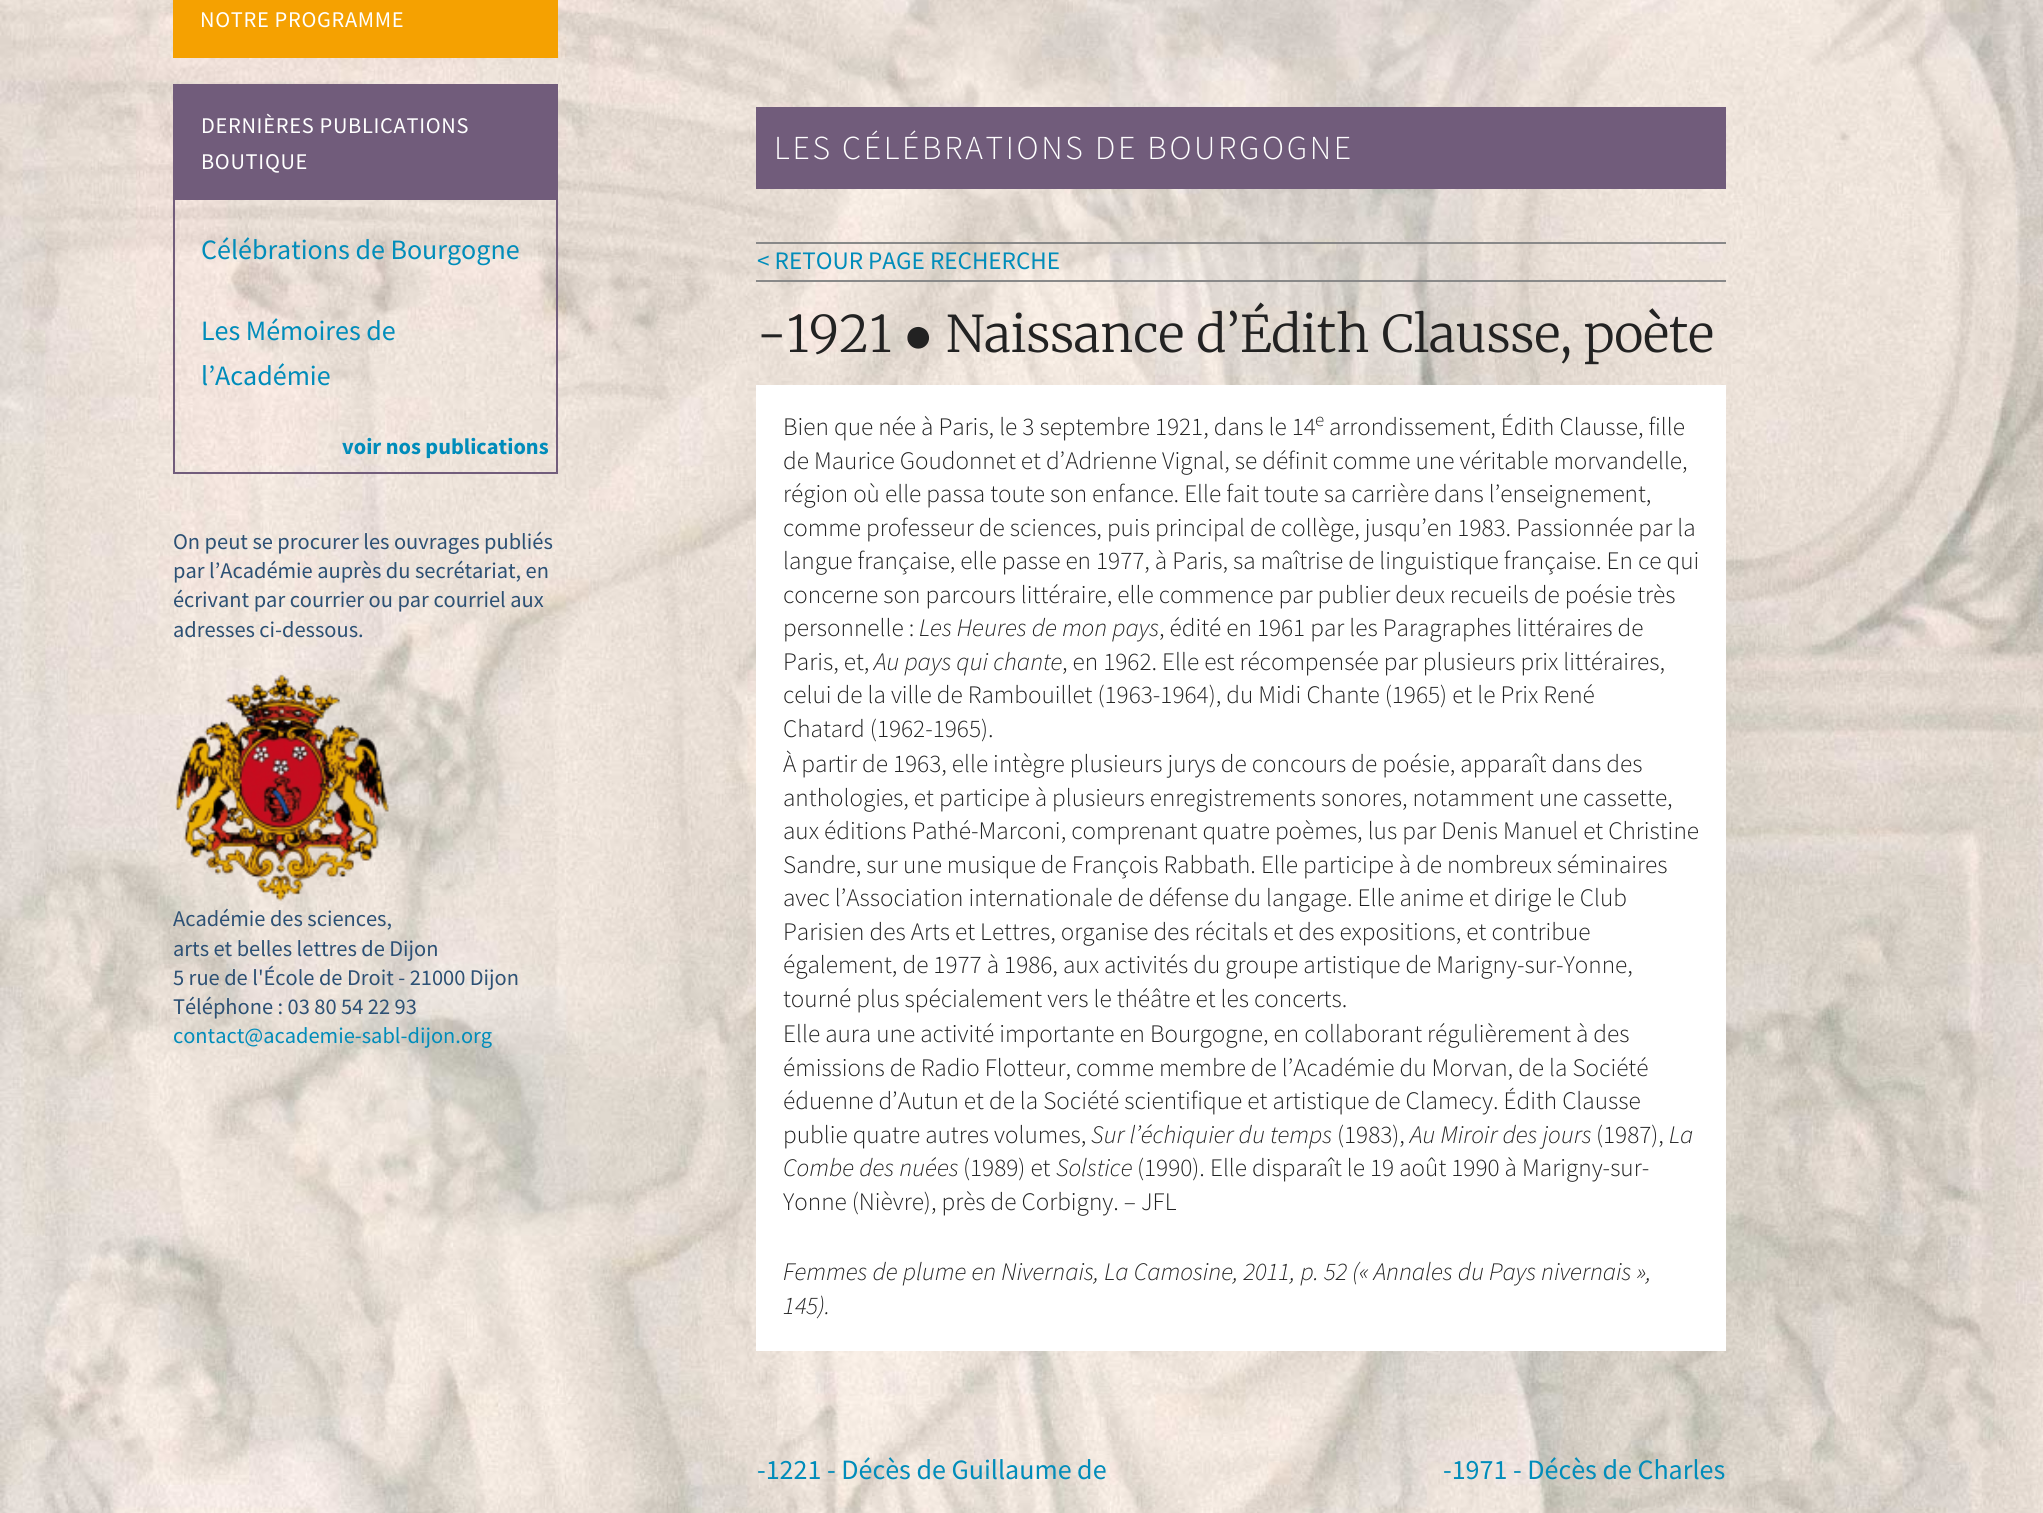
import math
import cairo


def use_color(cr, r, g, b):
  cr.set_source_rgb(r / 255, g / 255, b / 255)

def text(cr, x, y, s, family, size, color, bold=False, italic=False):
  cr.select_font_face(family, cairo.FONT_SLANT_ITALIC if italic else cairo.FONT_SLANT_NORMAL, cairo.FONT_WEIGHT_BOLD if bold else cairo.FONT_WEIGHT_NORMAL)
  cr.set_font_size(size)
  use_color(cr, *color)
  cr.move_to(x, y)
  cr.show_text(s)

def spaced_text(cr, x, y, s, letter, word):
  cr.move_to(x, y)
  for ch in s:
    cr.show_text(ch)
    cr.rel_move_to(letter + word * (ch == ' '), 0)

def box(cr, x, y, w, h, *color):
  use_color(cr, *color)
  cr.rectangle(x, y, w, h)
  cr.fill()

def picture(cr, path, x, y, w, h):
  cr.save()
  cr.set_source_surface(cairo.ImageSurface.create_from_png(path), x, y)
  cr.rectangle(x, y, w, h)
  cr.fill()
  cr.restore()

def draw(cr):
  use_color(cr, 255, 255, 255)
  cr.paint()
  picture(cr, "img_01.png", 0, 0, 2043, 1513)
  box(cr, 173, 0, 385, 58, 245, 161, 1)
  cr.rectangle(174, 85, 383, 388)
  use_color(cr, 113, 92, 123)
  cr.stroke()
  box(cr, 175, 86, 381, 114, 113, 92, 123)
  picture(cr, "img_02.png", 175, 674, 214, 228)
  box(cr, 756, 107, 970, 82, 113, 92, 123)
  box(cr, 756, 242, 970, 2, 136, 136, 136)
  box(cr, 756, 280, 970, 2, 136, 136, 136)
  box(cr, 756, 385, 970, 966, 255, 255, 255)
  cr.select_font_face("Source Sans Pro")
  cr.set_font_size(22.4)
  spaced_text(cr, 200, 27, "NOTRE PROGRAMME", 0.7, 0)
  spaced_text(cr, 201, 133, "DERNIÈRES PUBLICATIONS", 0.7, 0)
  spaced_text(cr, 201, 169, "BOUTIQUE", 0.7, 0)
  text(cr, 201, 259, "Célébrations de Bourgogne", "Source Sans Pro", 28, (0, 140, 186))
  text(cr, 201, 340, "Les Mémoires de", "Source Sans Pro", 28, (0, 140, 186))
  text(cr, 201, 385, "l’Académie", "Source Sans Pro", 28, (0, 140, 186))
  text(cr, 342, 454, "voir nos publications", "Source Sans Pro", 22.4, (0, 140, 186), bold=True)
  text(cr, 173, 549, "On peut se procurer les ouvrages publiés", "Source Sans Pro", 22.4, (44, 80, 116))
  text(cr, 173, 578, "par l’Académie auprès du secrétariat, en", "Source Sans Pro", 22.4, (44, 80, 116))
  text(cr, 173, 607, "écrivant par courrier ou par courriel aux", "Source Sans Pro", 22.4, (44, 80, 116))
  text(cr, 173, 637, "adresses ci-dessous.", "Source Sans Pro", 22.4, (44, 80, 116))
  text(cr, 173, 926, "Académie des sciences,", "Source Sans Pro", 22.4, (44, 80, 116))
  text(cr, 173, 956, "arts et belles lettres de Dijon", "Source Sans Pro", 22.4, (44, 80, 116))
  text(cr, 173, 985, "5 rue de l'École de Droit - 21000 Dijon", "Source Sans Pro", 22.4, (44, 80, 116))
  text(cr, 173, 1014, "Téléphone : 03 80 54 22 93", "Source Sans Pro", 22.4, (44, 80, 116))
  text(cr, 173, 1043, "contact@academie-sabl-dijon.org", "Source Sans Pro", 22.4, (0, 140, 186))
  cr.select_font_face("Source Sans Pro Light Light")
  cr.set_font_size(33.6)
  use_color(cr, 255, 255, 255)
  spaced_text(cr, 774, 159, "LES CÉLÉBRATIONS DE BOURGOGNE", 2.7, 0)
  text(cr, 757, 269, "< RETOUR PAGE RECHERCHE", "Source Sans Pro", 25.2, (0, 140, 186))
  text(cr, 757, 352, "-1921", "Merriweather Light", 50.4, (34, 34, 34))
  text(cr, 903, 352, "●", "Liberation Serif", 50.4, (34, 34, 34))
  text(cr, 946, 352, "Naissance d’Édith Clausse, poète", "Merriweather Light", 50.4, (34, 34, 34))
  text(cr, 783, 435, "Bien que née à Paris, le 3 septembre 1921, dans le 14", "Source Sans Pro Light Light", 25.2, (34, 34, 34))
  text(cr, 1315, 426, "e", "Source Sans Pro Light Light", 19, (34, 34, 34))
  text(cr, 1329, 435, "arrondissement, Édith Clausse, fille", "Source Sans Pro Light Light", 25.2, (34, 34, 34))
  text(cr, 783, 469, "de Maurice Goudonnet et d’Adrienne Vignal, se définit comme une véritable morvandelle,", "Source Sans Pro Light Light", 25.2, (34, 34, 34))
  text(cr, 783, 502, "région où elle passa toute son enfance. Elle fait toute sa carrière dans l’enseignement,", "Source Sans Pro Light Light", 25.2, (34, 34, 34))
  text(cr, 783, 536, "comme professeur de sciences, puis principal de collège, jusqu’en 1983. Passionnée par la", "Source Sans Pro Light Light", 25.2, (34, 34, 34))
  text(cr, 783, 569, "langue française, elle passe en 1977, à Paris, sa maîtrise de linguistique française. En ce qui", "Source Sans Pro Light Light", 25.2, (34, 34, 34))
  text(cr, 783, 603, "concerne son parcours littéraire, elle commence par publier deux recueils de poésie très", "Source Sans Pro Light Light", 25.2, (34, 34, 34))
  text(cr, 783, 636, "personnelle :", "Source Sans Pro Light Light", 25.2, (34, 34, 34))
  text(cr, 919, 636, "Les Heures de mon pays", "Source Sans Pro Light Light", 25.2, (34, 34, 34), italic=True)
  text(cr, 1159, 636, ", édité en 1961 par les Paragraphes littéraires de", "Source Sans Pro Light Light", 25.2, (34, 34, 34))
  text(cr, 783, 670, "Paris, et,", "Source Sans Pro Light Light", 25.2, (34, 34, 34))
  text(cr, 874, 670, "Au pays qui chante", "Source Sans Pro Light Light", 25.2, (34, 34, 34), italic=True)
  text(cr, 1062, 670, ", en 1962. Elle est récompensée par plusieurs prix littéraires,", "Source Sans Pro Light Light", 25.2, (34, 34, 34))
  text(cr, 783, 703, "celui de la ville de Rambouillet (1963-1964), du Midi Chante (1965) et le Prix René", "Source Sans Pro Light Light", 25.2, (34, 34, 34))
  text(cr, 783, 737, "Chatard (1962-1965).", "Source Sans Pro Light Light", 25.2, (34, 34, 34))
  text(cr, 783, 772, "À partir de 1963, elle intègre plusieurs jurys de concours de poésie, apparaît dans des", "Source Sans Pro Light Light", 25.2, (34, 34, 34))
  text(cr, 783, 806, "anthologies, et participe à plusieurs enregistrements sonores, notamment une cassette,", "Source Sans Pro Light Light", 25.2, (34, 34, 34))
  text(cr, 783, 839, "aux éditions Pathé-Marconi, comprenant quatre poèmes, lus par Denis Manuel et Christine", "Source Sans Pro Light Light", 25.2, (34, 34, 34))
  text(cr, 783, 873, "Sandre, sur une musique de François Rabbath. Elle participe à de nombreux séminaires", "Source Sans Pro Light Light", 25.2, (34, 34, 34))
  text(cr, 783, 906, "avec l’Association internationale de défense du langage. Elle anime et dirige le Club", "Source Sans Pro Light Light", 25.2, (34, 34, 34))
  text(cr, 783, 940, "Parisien des Arts et Lettres, organise des récitals et des expositions, et contribue", "Source Sans Pro Light Light", 25.2, (34, 34, 34))
  text(cr, 783, 973, "également, de 1977 à 1986, aux activités du groupe artistique de Marigny-sur-Yonne,", "Source Sans Pro Light Light", 25.2, (34, 34, 34))
  text(cr, 783, 1007, "tourné plus spécialement vers le théâtre et les concerts.", "Source Sans Pro Light Light", 25.2, (34, 34, 34))
  text(cr, 783, 1042, "Elle aura une activité importante en Bourgogne, en collaborant régulièrement à des", "Source Sans Pro Light Light", 25.2, (34, 34, 34))
  text(cr, 783, 1076, "émissions de Radio Flotteur, comme membre de l’Académie du Morvan, de la Société", "Source Sans Pro Light Light", 25.2, (34, 34, 34))
  text(cr, 783, 1109, "éduenne d’Autun et de la Société scientifique et artistique de Clamecy. Édith Clausse", "Source Sans Pro Light Light", 25.2, (34, 34, 34))
  text(cr, 783, 1143, "publie quatre autres volumes,", "Source Sans Pro Light Light", 25.2, (34, 34, 34))
  text(cr, 1091, 1143, "Sur l’échiquier du temps", "Source Sans Pro Light Light", 25.2, (34, 34, 34), italic=True)
  text(cr, 1337, 1143, "(1983),", "Source Sans Pro Light Light", 25.2, (34, 34, 34))
  text(cr, 1410, 1143, "Au Miroir des jours", "Source Sans Pro Light Light", 25.2, (34, 34, 34), italic=True)
  text(cr, 1596, 1143, "(1987),", "Source Sans Pro Light Light", 25.2, (34, 34, 34))
  text(cr, 1669, 1143, "La", "Source Sans Pro Light Light", 25.2, (34, 34, 34), italic=True)
  text(cr, 783, 1176, "Combe des nuées", "Source Sans Pro Light Light", 25.2, (34, 34, 34), italic=True)
  text(cr, 963, 1176, "(1989) et", "Source Sans Pro Light Light", 25.2, (34, 34, 34))
  text(cr, 1056, 1176, "Solstice", "Source Sans Pro Light Light", 25.2, (34, 34, 34), italic=True)
  text(cr, 1137, 1176, "(1990). Elle disparaît le 19 août 1990 à Marigny-sur-", "Source Sans Pro Light Light", 25.2, (34, 34, 34))
  text(cr, 783, 1210, "Yonne (Nièvre), près de Corbigny. – JFL", "Source Sans Pro Light Light", 25.2, (34, 34, 34))
  text(cr, 783, 1280, "Femmes de plume en Nivernais, La Camosine, 2011, p. 52 (« Annales du Pays nivernais »,", "Source Sans Pro Light Light", 25.2, (34, 34, 34), italic=True)
  text(cr, 783, 1314, "145).", "Source Sans Pro Light Light", 25.2, (34, 34, 34), italic=True)
  text(cr, 757, 1479, "-1221 - Décès de Guillaume de", "Source Sans Pro", 28, (0, 140, 186))
  text(cr, 1443, 1479, "-1971 - Décès de Charles", "Source Sans Pro", 28, (0, 140, 186))


surface = cairo.ImageSurface(cairo.FORMAT_RGB24, 2043, 1513)
cr = cairo.Context(surface)
options = cairo.FontOptions()
options.set_hint_metrics(cairo.HINT_METRICS_OFF)
options.set_hint_style(cairo.HINT_STYLE_NONE)
cr.set_font_options(options)
cr.set_miter_limit(4)
draw(cr)
surface.write_to_png("out.png")
